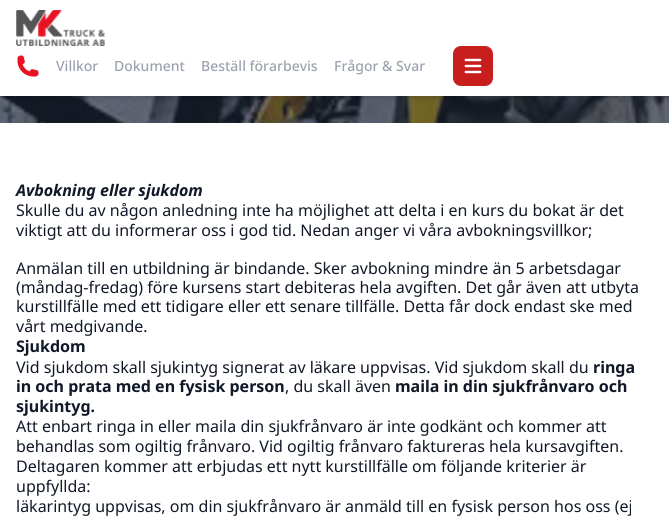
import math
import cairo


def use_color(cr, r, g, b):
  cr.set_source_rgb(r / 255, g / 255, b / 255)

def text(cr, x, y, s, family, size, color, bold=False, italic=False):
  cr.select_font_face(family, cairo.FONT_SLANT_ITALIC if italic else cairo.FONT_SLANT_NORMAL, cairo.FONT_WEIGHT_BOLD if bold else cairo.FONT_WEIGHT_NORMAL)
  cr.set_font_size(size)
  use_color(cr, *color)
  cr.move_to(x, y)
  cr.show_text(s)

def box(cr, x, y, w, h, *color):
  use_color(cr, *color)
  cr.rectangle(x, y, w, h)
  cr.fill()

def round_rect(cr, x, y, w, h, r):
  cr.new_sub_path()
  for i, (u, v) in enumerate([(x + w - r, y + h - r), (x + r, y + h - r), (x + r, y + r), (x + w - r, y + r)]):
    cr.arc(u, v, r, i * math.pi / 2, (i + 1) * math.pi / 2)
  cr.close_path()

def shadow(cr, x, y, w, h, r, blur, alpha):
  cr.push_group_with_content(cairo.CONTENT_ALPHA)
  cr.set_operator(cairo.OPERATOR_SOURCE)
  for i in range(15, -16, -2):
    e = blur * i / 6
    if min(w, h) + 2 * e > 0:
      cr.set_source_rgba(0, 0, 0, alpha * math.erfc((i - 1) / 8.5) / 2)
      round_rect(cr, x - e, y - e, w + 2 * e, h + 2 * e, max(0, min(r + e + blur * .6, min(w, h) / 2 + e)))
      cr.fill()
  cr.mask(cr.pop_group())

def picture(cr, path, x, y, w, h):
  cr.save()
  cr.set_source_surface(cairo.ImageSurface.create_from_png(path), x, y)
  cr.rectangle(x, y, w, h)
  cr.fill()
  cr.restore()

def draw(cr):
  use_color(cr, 255, 255, 255)
  cr.paint()
  picture(cr, "img_04.png", 0, 96, 669, 27)
  use_color(cr, 0, 0, 0)
  shadow(cr, 2, 4, 665, 92, 0, 2, 0.1)
  shadow(cr, 1, 5, 667, 94, 0, 3, 0.1)
  box(cr, 0, 0, 669, 96, 255, 255, 255)
  picture(cr, "img_01.png", 16, 10, 89, 36)
  picture(cr, "img_02.png", 17, 55, 22, 22)
  use_color(cr, 200, 30, 30)
  round_rect(cr, 453, 46, 40, 40, 8)
  cr.fill()
  picture(cr, "img_03.png", 464, 58, 18, 16)
  text(cr, 56, 71, "Villkor", "Noto Sans Medium", 14, (156, 163, 175))
  text(cr, 114, 71, "Dokument", "Noto Sans Medium", 14, (156, 163, 175))
  text(cr, 201, 71, "Beställ förarbevis", "Noto Sans Medium", 14, (156, 163, 175))
  text(cr, 334, 71, "Frågor & Svar", "Noto Sans Medium", 14, (156, 163, 175))
  text(cr, 16, 196, "Avbokning eller sjukdom", "Noto Sans", 16, (17, 24, 39), bold=True, italic=True)
  text(cr, 16, 216, "Skulle du av någon anledning inte ha möjlighet att delta i en kurs du bokat är det", "Noto Sans", 16, (17, 24, 39))
  text(cr, 16, 236, "viktigt att du informerar oss i god tid. Nedan anger vi våra avbokningsvillkor;", "Noto Sans", 16, (17, 24, 39))
  text(cr, 16, 274, "Anmälan till en utbildning är bindande. Sker avbokning mindre än 5 arbetsdagar", "Noto Sans", 16, (17, 24, 39))
  text(cr, 16, 293, "(måndag-fredag) före kursens start debiteras hela avgiften. Det går även att utbyta", "Noto Sans", 16, (17, 24, 39))
  text(cr, 16, 312, "kurstillfälle med ett tidigare eller ett senare tillfälle. Detta får dock endast ske med", "Noto Sans", 16, (17, 24, 39))
  text(cr, 16, 332, "vårt medgivande.", "Noto Sans", 16, (17, 24, 39))
  text(cr, 16, 352, "Sjukdom", "Noto Sans", 16, (17, 24, 39), bold=True)
  text(cr, 16, 373, "Vid sjukdom skall sjukintyg signerat av läkare uppvisas. Vid sjukdom skall du", "Noto Sans", 16, (17, 24, 39))
  text(cr, 593, 373, "ringa", "Noto Sans", 16, (17, 24, 39), bold=True)
  text(cr, 16, 392, "in och prata med en fysisk person", "Noto Sans", 16, (17, 24, 39), bold=True)
  text(cr, 285, 392, ", du skall även", "Noto Sans", 16, (17, 24, 39))
  text(cr, 395, 392, "maila in din sjukfrånvaro och", "Noto Sans", 16, (17, 24, 39), bold=True)
  text(cr, 16, 412, "sjukintyg.", "Noto Sans", 16, (17, 24, 39), bold=True)
  text(cr, 16, 432, "Att enbart ringa in eller maila din sjukfrånvaro är inte godkänt och kommer att", "Noto Sans", 16, (17, 24, 39))
  text(cr, 16, 452, "behandlas som ogiltig frånvaro. Vid ogiltig frånvaro faktureras hela kursavgiften.", "Noto Sans", 16, (17, 24, 39))
  text(cr, 16, 472, "Deltagaren kommer att erbjudas ett nytt kurstillfälle om följande kriterier är", "Noto Sans", 16, (17, 24, 39))
  text(cr, 16, 492, "uppfyllda:", "Noto Sans", 16, (17, 24, 39))
  text(cr, 16, 512, "läkarintyg uppvisas, om din sjukfrånvaro är anmäld till en fysisk person hos oss (ej", "Noto Sans", 16, (17, 24, 39))


surface = cairo.ImageSurface(cairo.FORMAT_RGB24, 669, 519)
cr = cairo.Context(surface)
options = cairo.FontOptions()
options.set_hint_metrics(cairo.HINT_METRICS_OFF)
options.set_hint_style(cairo.HINT_STYLE_NONE)
cr.set_font_options(options)
cr.set_miter_limit(4)
draw(cr)
surface.write_to_png("out.png")
